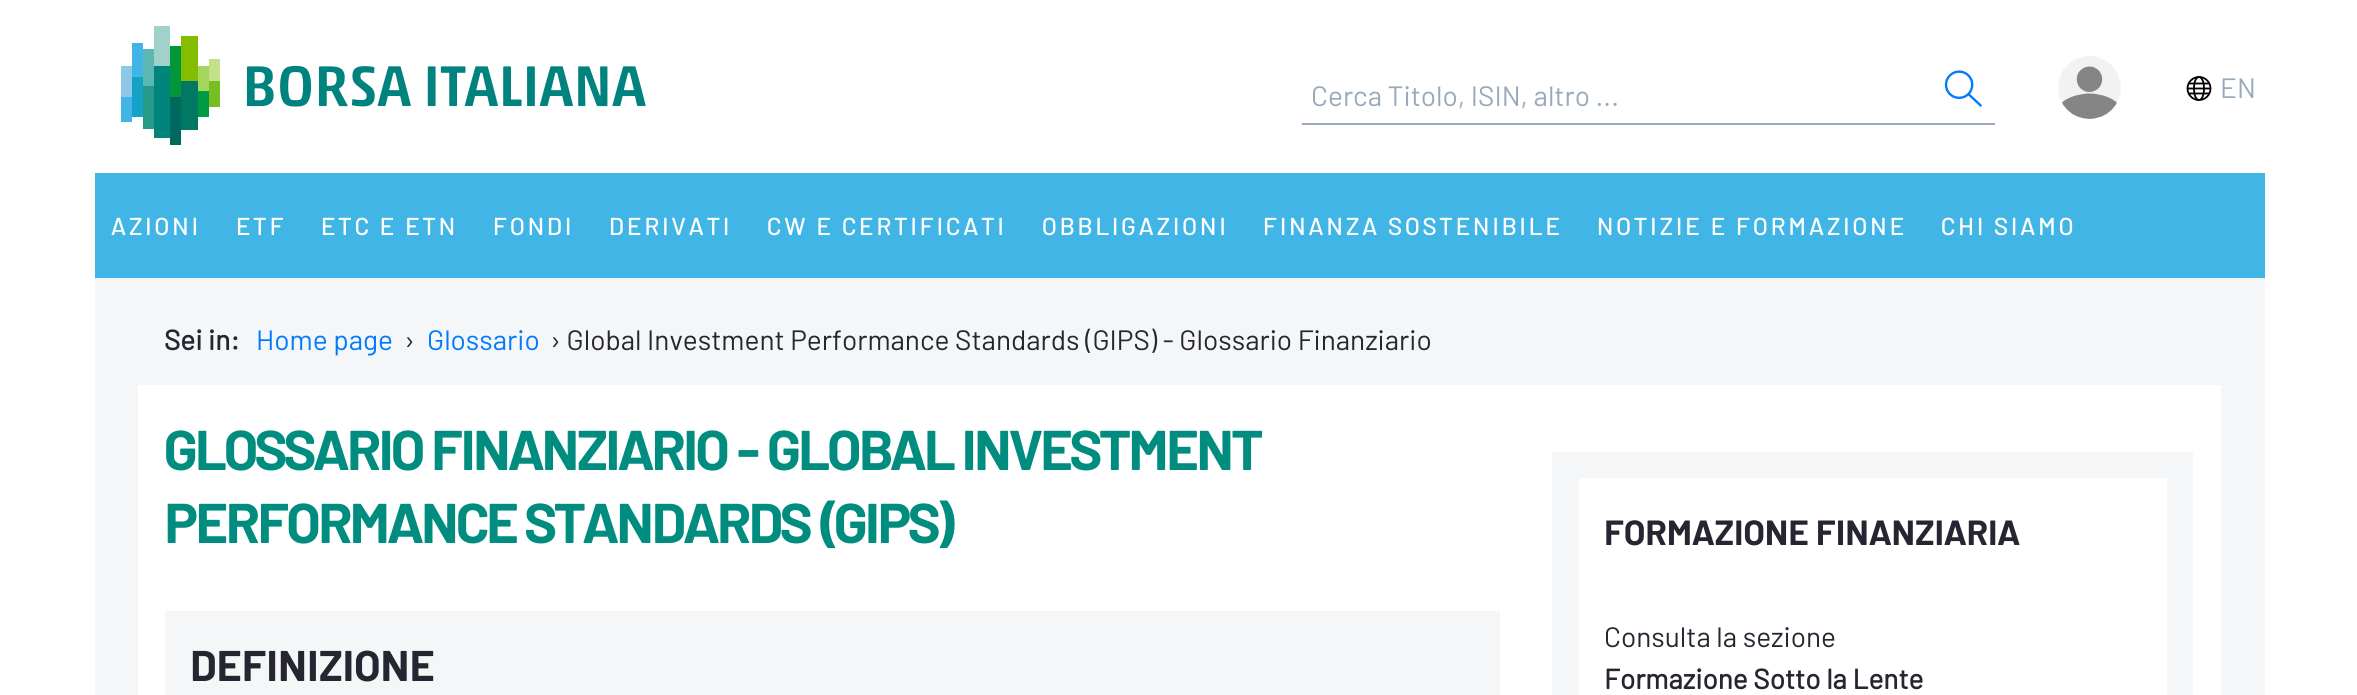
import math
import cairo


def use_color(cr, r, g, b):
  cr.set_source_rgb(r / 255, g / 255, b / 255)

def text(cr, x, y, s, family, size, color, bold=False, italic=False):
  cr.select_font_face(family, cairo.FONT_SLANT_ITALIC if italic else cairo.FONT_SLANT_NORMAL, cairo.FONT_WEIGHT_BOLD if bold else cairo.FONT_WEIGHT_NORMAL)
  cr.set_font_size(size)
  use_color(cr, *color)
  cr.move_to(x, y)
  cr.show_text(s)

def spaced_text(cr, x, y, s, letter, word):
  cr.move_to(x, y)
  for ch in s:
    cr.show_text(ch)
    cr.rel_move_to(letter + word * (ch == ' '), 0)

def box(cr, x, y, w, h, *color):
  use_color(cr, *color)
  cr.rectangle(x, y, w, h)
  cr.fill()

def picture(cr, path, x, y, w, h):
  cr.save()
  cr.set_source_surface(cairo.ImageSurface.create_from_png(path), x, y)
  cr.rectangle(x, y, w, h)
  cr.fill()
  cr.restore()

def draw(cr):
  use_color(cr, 255, 255, 255)
  cr.paint()
  picture(cr, "img_01.png", 121, 26, 525, 119)
  box(cr, 1302, 123, 693, 2, 152, 169, 188)
  picture(cr, "img_02.png", 1944, 70, 38, 37)
  picture(cr, "img_03.png", 2058, 56, 63, 63)
  cr.arc(2199, 88.5, 11.5, 0, 2 * math.pi)
  use_color(cr, 0, 0, 0)
  cr.set_line_width(1.8)
  cr.stroke()
  cr.new_path()
  cr.move_to(2187.5, 88.5)
  cr.line_to(2210, 88.5)
  cr.move_to(2188.5, 83.5)
  cr.line_to(2209, 83.5)
  cr.move_to(2188.5, 93.5)
  cr.line_to(2209, 93.5)
  cr.stroke()
  cr.new_path()
  cr.move_to(2199, 77)
  cr.curve_to(2202, 77, 2204, 82, 2204, 88.5)
  cr.curve_to(2204, 95, 2202, 100, 2199, 100)
  cr.curve_to(2196, 100, 2194, 95, 2194, 88.5)
  cr.curve_to(2194, 82, 2196, 77, 2199, 77)
  cr.close_path()
  cr.stroke()
  box(cr, 95, 173, 2170, 105, 65, 182, 230)
  box(cr, 95, 278, 2170, 417, 245, 246, 247)
  box(cr, 138, 385, 2083, 310, 255, 255, 255)
  box(cr, 165, 611, 1335, 84, 245, 246, 247)
  box(cr, 1552, 452, 641, 243, 245, 246, 247)
  box(cr, 1579, 478, 588, 217, 255, 255, 255)
  text(cr, 1311, 106, "Cerca Titolo, ISIN, altro ...", "Barlow", 28, (152, 169, 188))
  text(cr, 2220, 98, "EN", "Barlow", 28, (152, 169, 188))
  cr.select_font_face("Barlow Medium")
  cr.set_font_size(24.5)
  use_color(cr, 255, 255, 255)
  spaced_text(cr, 111, 235, "AZIONI", 3.1, 0)
  spaced_text(cr, 236, 235, "ETF", 3.1, 0)
  spaced_text(cr, 321, 235, "ETC E ETN", 3.1, 0)
  spaced_text(cr, 493, 235, "FONDI", 3.1, 0)
  spaced_text(cr, 609, 235, "DERIVATI", 3.1, 0)
  spaced_text(cr, 767, 235, "CW E CERTIFICATI", 3.1, 0)
  spaced_text(cr, 1042, 235, "OBBLIGAZIONI", 3.1, 0)
  spaced_text(cr, 1263, 235, "FINANZA SOSTENIBILE", 3.1, 0)
  spaced_text(cr, 1597, 235, "NOTIZIE E FORMAZIONE", 3.1, 0)
  spaced_text(cr, 1941, 235, "CHI SIAMO", 3.1, 0)
  text(cr, 164, 350, "Sei in:", "Barlow", 28, (37, 38, 49), bold=True)
  text(cr, 256, 350, "Home page", "Barlow", 28, (0, 122, 255))
  text(cr, 404, 350, "›", "Barlow", 28, (37, 38, 49))
  text(cr, 427, 350, "Glossario", "Barlow", 28, (0, 122, 255))
  text(cr, 550, 350, "› Global Investment Performance Standards (GIPS) - Glossario Finanziario", "Barlow", 28, (37, 38, 49))
  cr.select_font_face("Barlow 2", cairo.FONT_SLANT_NORMAL, cairo.FONT_WEIGHT_BOLD)
  cr.set_font_size(56)
  use_color(cr, 0, 141, 127)
  spaced_text(cr, 164, 470, "GLOSSARIO FINANZIARIO - GLOBAL INVESTMENT", -2.6, 0)
  spaced_text(cr, 164, 543, "PERFORMANCE STANDARDS (GIPS)", -2.6, 0)
  text(cr, 190, 681, "DEFINIZIONE", "Barlow 2", 43, (37, 38, 49), bold=True)
  text(cr, 1604, 545, "FORMAZIONE FINANZIARIA", "Barlow 2", 35, (37, 38, 49), bold=True)
  text(cr, 1604, 647, "Consulta la sezione", "Barlow", 28, (37, 38, 49))
  text(cr, 1604, 689, "Formazione Sotto la Lente", "Barlow", 28, (37, 38, 49), bold=True)


surface = cairo.ImageSurface(cairo.FORMAT_RGB24, 2357, 695)
cr = cairo.Context(surface)
options = cairo.FontOptions()
options.set_hint_metrics(cairo.HINT_METRICS_OFF)
options.set_hint_style(cairo.HINT_STYLE_NONE)
cr.set_font_options(options)
cr.set_miter_limit(4)
draw(cr)
surface.write_to_png("out.png")
